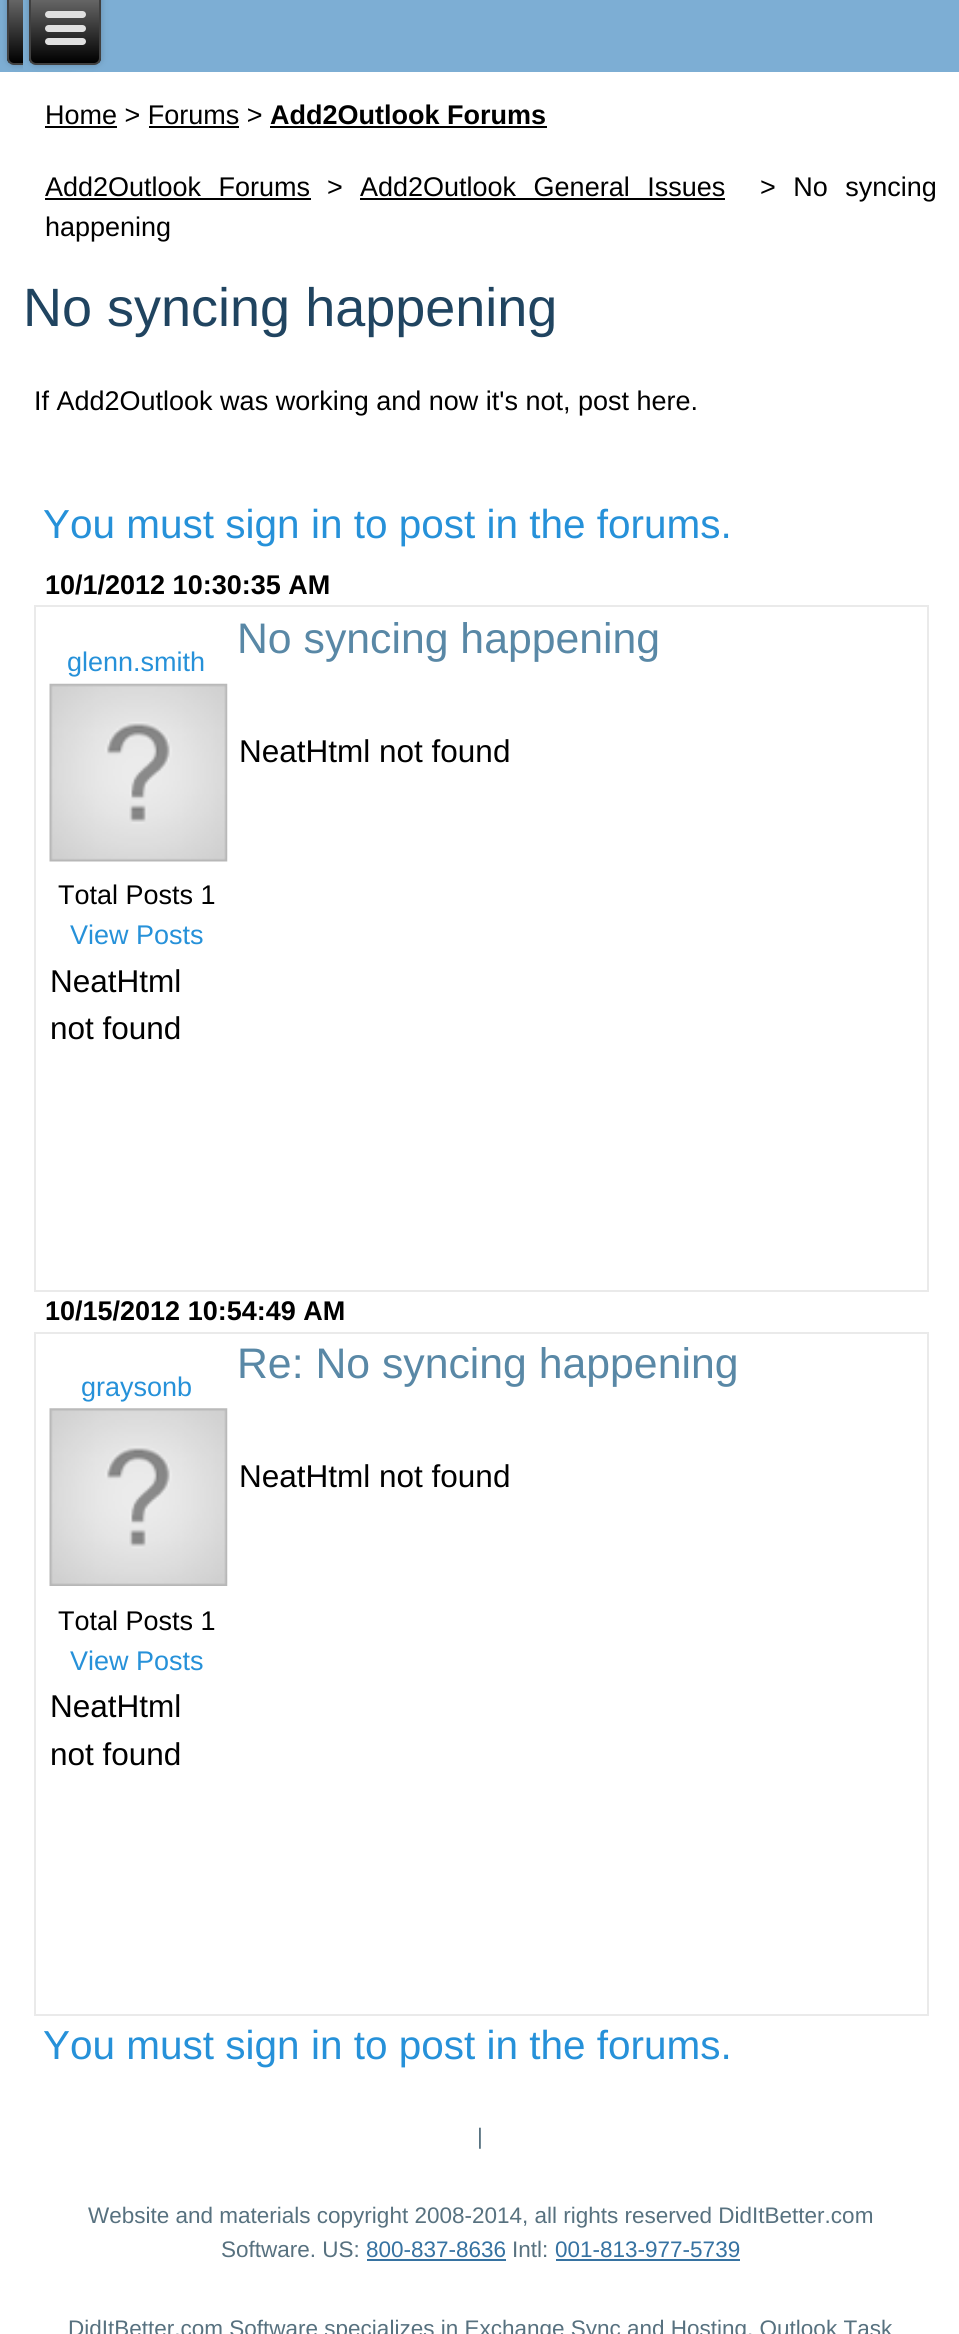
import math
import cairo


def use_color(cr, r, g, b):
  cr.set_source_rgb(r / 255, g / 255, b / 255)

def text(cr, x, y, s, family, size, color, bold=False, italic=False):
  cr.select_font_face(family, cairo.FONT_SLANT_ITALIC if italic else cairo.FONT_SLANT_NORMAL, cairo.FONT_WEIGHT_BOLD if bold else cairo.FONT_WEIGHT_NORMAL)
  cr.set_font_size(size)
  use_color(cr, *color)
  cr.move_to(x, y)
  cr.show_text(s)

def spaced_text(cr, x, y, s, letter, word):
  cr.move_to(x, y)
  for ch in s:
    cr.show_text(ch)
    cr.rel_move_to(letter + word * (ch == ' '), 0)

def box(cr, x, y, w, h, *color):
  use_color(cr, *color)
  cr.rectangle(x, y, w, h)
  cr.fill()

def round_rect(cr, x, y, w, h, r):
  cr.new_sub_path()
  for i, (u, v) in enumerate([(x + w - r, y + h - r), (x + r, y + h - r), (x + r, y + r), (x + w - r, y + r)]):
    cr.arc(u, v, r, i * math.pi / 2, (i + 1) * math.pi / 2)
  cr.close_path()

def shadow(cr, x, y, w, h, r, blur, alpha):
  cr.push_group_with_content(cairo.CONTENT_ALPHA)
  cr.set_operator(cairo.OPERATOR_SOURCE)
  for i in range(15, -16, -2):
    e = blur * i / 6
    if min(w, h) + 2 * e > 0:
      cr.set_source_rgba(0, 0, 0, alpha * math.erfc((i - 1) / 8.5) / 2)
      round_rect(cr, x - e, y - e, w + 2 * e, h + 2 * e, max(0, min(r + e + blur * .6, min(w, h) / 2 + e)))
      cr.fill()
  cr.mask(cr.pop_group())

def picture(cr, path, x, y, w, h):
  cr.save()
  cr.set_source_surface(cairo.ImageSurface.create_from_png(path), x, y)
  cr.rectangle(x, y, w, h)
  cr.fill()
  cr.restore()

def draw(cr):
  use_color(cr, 255, 255, 255)
  cr.paint()
  box(cr, 0, 0, 959, 72, 125, 174, 212)
  use_color(cr, 0, 0, 0)
  shadow(cr, 7, -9, 72, 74, 7, 3.5, 0.2)
  cr.save()
  round_rect(cr, 7, -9, 72, 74, 7)
  cr.clip()
  gradient = cairo.LinearGradient(43, -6.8, 43, 63)
  gradient.add_color_stop_rgba(0, 0.439, 0.439, 0.439, 1)
  gradient.add_color_stop_rgba(1, 0, 0, 0, 1)
  cr.set_source(gradient)
  cr.rectangle(7, 0, 16, 63)
  cr.fill()
  cr.restore()
  round_rect(cr, 8, -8, 70, 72, 6)
  use_color(cr, 64, 64, 64)
  cr.stroke()
  box(cr, 23, 0, 61, 70, 125, 174, 212)
  use_color(cr, 0, 0, 0)
  shadow(cr, 29, -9, 72, 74, 7, 3.5, 0.2)
  cr.save()
  round_rect(cr, 29, -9, 72, 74, 7)
  cr.clip()
  gradient = cairo.LinearGradient(65, -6.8, 65, 63)
  gradient.add_color_stop_rgba(0, 0.439, 0.439, 0.439, 1)
  gradient.add_color_stop_rgba(1, 0, 0, 0, 1)
  cr.set_source(gradient)
  cr.rectangle(29, 0, 72, 63)
  cr.fill()
  cr.restore()
  round_rect(cr, 30, -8, 70, 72, 6)
  use_color(cr, 64, 64, 64)
  cr.stroke()
  use_color(cr, 224, 224, 224)
  round_rect(cr, 45, 11, 41, 7, 3.5)
  cr.fill()
  round_rect(cr, 45, 25, 41, 7, 3.5)
  cr.fill()
  round_rect(cr, 45, 38, 41, 7, 3.5)
  cr.fill()
  box(cr, 45, 126, 72, 2, 0, 0, 0)
  box(cr, 270, 126, 277, 2, 0, 0, 0)
  box(cr, 149, 126, 90, 2, 0, 0, 0)
  box(cr, 45, 198, 266, 2, 0, 0, 0)
  box(cr, 360, 198, 365, 2, 0, 0, 0)
  cr.rectangle(35, 606, 893, 685)
  use_color(cr, 234, 234, 234)
  cr.stroke()
  picture(cr, "img_01.png", 49, 683, 179, 179)
  cr.rectangle(35, 1333, 893, 682)
  cr.stroke()
  picture(cr, "img_02.png", 49, 1408, 179, 178)
  box(cr, 367, 2259, 139, 2, 54, 114, 161)
  box(cr, 556, 2259, 184, 2, 54, 114, 161)
  text(cr, 45, 124, "Home > Forums >", "Liberation Sans", 27, (0, 0, 0))
  text(cr, 270, 124, "Add2Outlook Forums", "Liberation Sans", 27, (0, 0, 0), bold=True)
  cr.select_font_face("Liberation Sans")
  spaced_text(cr, 45, 196, "Add2Outlook Forums", 0, 10)
  text(cr, 327, 196, ">", "Liberation Sans", 27, (0, 0, 0))
  spaced_text(cr, 360, 196, "Add2Outlook General Issues", 0, 10)
  spaced_text(cr, 760, 196, "> No syncing", 0, 10)
  text(cr, 45, 236, "happening", "Liberation Sans", 27, (0, 0, 0))
  text(cr, 23, 326, "No syncing happening", "Liberation Sans", 54, (32, 68, 96))
  text(cr, 34, 410, "If Add2Outlook was working and now it's not, post here.", "Liberation Sans", 27, (0, 0, 0))
  text(cr, 43, 538, "You must sign in to post in the forums.", "Liberation Sans", 40.5, (38, 145, 217))
  text(cr, 45, 594, "10/1/2012 10:30:35 AM", "Liberation Sans", 27, (0, 0, 0), bold=True)
  text(cr, 67, 671, "glenn.smith", "Liberation Sans", 27, (38, 145, 217))
  text(cr, 58, 904, "Total Posts 1", "Liberation Sans", 27, (0, 0, 0))
  text(cr, 70, 944, "View Posts", "Liberation Sans", 27, (38, 145, 217))
  text(cr, 50, 992, "NeatHtml", "Liberation Sans", 31.5, (0, 0, 0))
  text(cr, 50, 1039, "not found", "Liberation Sans", 31.5, (0, 0, 0))
  text(cr, 237, 653, "No syncing happening", "Liberation Sans", 42.75, (89, 136, 166))
  text(cr, 239, 762, "NeatHtml not found", "Liberation Sans", 31.5, (0, 0, 0))
  text(cr, 45, 1320, "10/15/2012 10:54:49 AM", "Liberation Sans", 27, (0, 0, 0), bold=True)
  text(cr, 81, 1396, "graysonb", "Liberation Sans", 27, (38, 145, 217))
  text(cr, 58, 1630, "Total Posts 1", "Liberation Sans", 27, (0, 0, 0))
  text(cr, 70, 1670, "View Posts", "Liberation Sans", 27, (38, 145, 217))
  text(cr, 50, 1717, "NeatHtml", "Liberation Sans", 31.5, (0, 0, 0))
  text(cr, 50, 1765, "not found", "Liberation Sans", 31.5, (0, 0, 0))
  text(cr, 237, 1378, "Re: No syncing happening", "Liberation Sans", 42.75, (89, 136, 166))
  text(cr, 239, 1487, "NeatHtml not found", "Liberation Sans", 31.5, (0, 0, 0))
  text(cr, 43, 2059, "You must sign in to post in the forums.", "Liberation Sans", 40.5, (38, 145, 217))
  text(cr, 477, 2144, "|", "Liberation Sans", 22.5, (87, 113, 127))
  text(cr, 88, 2223, "Website and materials copyright 2008-2014, all rights reserved DidItBetter.com", "Liberation Sans", 22.5, (87, 113, 127))
  text(cr, 221, 2257, "Software. US:", "Liberation Sans", 22.5, (87, 113, 127))
  text(cr, 366, 2257, "800-837-8636", "Liberation Sans", 22.5, (54, 114, 161))
  text(cr, 512, 2257, "Intl:", "Liberation Sans", 22.5, (87, 113, 127))
  text(cr, 555, 2257, "001-813-977-5739", "Liberation Sans", 22.5, (54, 114, 161))
  text(cr, 68, 2336, "DidItBetter.com Software specializes in Exchange Sync and Hosting, Outlook Task", "Liberation Sans", 22.5, (87, 113, 127))


surface = cairo.ImageSurface(cairo.FORMAT_RGB24, 959, 2334)
cr = cairo.Context(surface)
options = cairo.FontOptions()
options.set_hint_metrics(cairo.HINT_METRICS_OFF)
options.set_hint_style(cairo.HINT_STYLE_NONE)
cr.set_font_options(options)
cr.set_miter_limit(4)
draw(cr)
surface.write_to_png("out.png")
